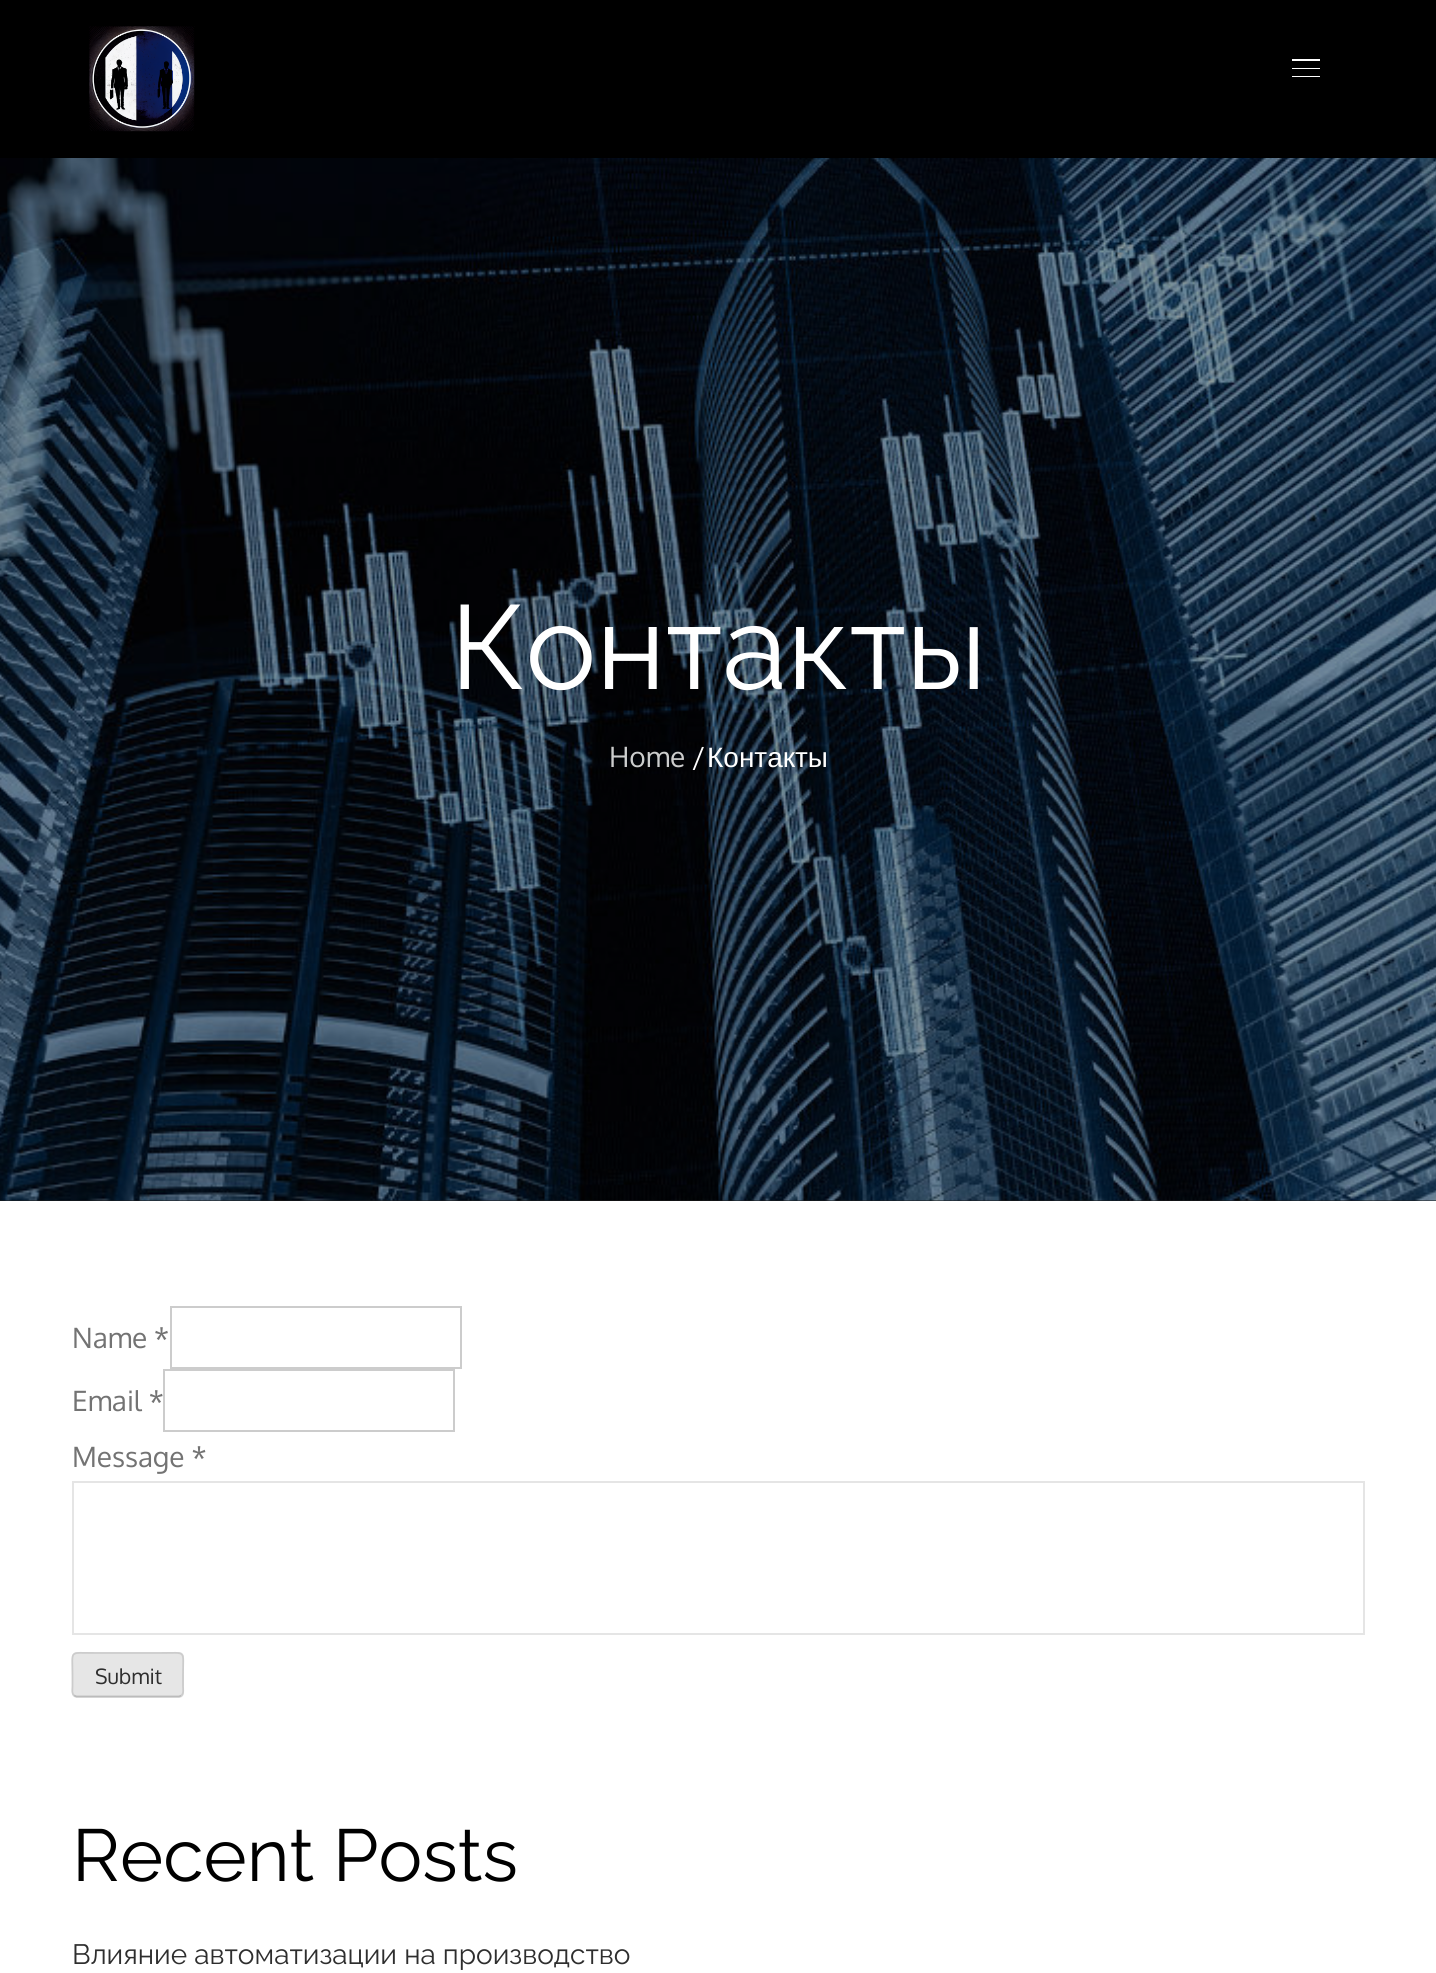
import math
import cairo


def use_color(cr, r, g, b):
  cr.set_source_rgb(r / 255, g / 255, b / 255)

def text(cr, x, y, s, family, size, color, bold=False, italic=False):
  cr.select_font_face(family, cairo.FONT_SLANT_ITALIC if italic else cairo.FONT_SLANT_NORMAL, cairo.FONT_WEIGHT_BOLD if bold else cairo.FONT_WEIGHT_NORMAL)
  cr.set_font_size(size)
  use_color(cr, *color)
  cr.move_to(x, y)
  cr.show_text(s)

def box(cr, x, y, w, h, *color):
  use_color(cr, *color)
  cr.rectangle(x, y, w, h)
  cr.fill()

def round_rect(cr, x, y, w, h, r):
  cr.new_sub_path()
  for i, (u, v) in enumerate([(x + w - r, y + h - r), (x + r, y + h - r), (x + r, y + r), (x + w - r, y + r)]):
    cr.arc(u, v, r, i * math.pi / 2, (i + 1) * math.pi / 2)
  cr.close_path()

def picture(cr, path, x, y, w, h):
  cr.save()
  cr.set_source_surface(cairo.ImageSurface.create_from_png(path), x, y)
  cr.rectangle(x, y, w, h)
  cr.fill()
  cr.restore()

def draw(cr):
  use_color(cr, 255, 255, 255)
  cr.paint()
  box(cr, 0, 0, 1436, 158, 0, 0, 0)
  picture(cr, "img_01.png", 89, 26, 106, 106)
  box(cr, 1292, 59, 28, 2, 255, 255, 255)
  box(cr, 1292, 68, 28, 1, 255, 255, 255)
  box(cr, 1292, 76, 28, 1, 255, 255, 255)
  box(cr, 0, 1200, 1436, 1, 31, 31, 31)
  picture(cr, "img_02.png", 0, 158, 1436, 1043)
  cr.rectangle(171, 1307, 290, 61)
  use_color(cr, 204, 204, 204)
  cr.stroke()
  cr.rectangle(164, 1370, 290, 61)
  cr.stroke()
  cr.rectangle(73, 1482, 1291, 152)
  use_color(cr, 229, 229, 229)
  cr.stroke()
  use_color(cr, 230, 230, 230)
  round_rect(cr, 72, 1652, 112, 46, 5)
  cr.fill()
  cr.new_path()
  cr.move_to(181.5, 1695.5)
  cr.line_to(179, 1696.5)
  cr.line_to(76.5, 1696.5)
  cr.line_to(74, 1695.5)
  use_color(cr, 187, 187, 187)
  cr.set_line_width(1.8)
  cr.stroke()
  cr.new_path()
  cr.move_to(74, 1695.5)
  cr.curve_to(71.5, 1693, 72.5, 1689, 72.5, 1686.5)
  cr.line_to(72.5, 1675)
  cr.curve_to(72.5, 1649.5, 68.5, 1653, 94, 1653)
  cr.line_to(161.5, 1653)
  cr.curve_to(187, 1653, 183, 1649.5, 183, 1675)
  cr.line_to(183, 1686.5)
  cr.curve_to(183, 1689, 184, 1693, 181.5, 1695.5)
  use_color(cr, 204, 204, 204)
  cr.stroke()
  text(cr, 450, 689, "Контакты", "Raleway", 119, (255, 255, 255))
  text(cr, 609, 767, "Home", "Oxygen", 28, (204, 205, 205))
  text(cr, 692, 767, "/", "Oxygen", 28, (255, 255, 255))
  text(cr, 707, 767, "Контакты", "Liberation Sans", 28, (255, 255, 255))
  text(cr, 72, 1348, "Name *", "Oxygen", 28, (115, 115, 115))
  text(cr, 72, 1411, "Email *", "Oxygen", 28, (115, 115, 115))
  text(cr, 72, 1467, "Message *", "Oxygen", 28, (115, 115, 115))
  text(cr, 95, 1684, "Submit", "Oxygen", 21, (46, 46, 46))
  text(cr, 72, 1881, "Recent Posts", "Raleway", 73.5, (0, 0, 0))
  text(cr, 72, 1964, "Влияние автоматизации на производство", "Raleway", 28, (46, 46, 46))


surface = cairo.ImageSurface(cairo.FORMAT_RGB24, 1436, 1973)
cr = cairo.Context(surface)
options = cairo.FontOptions()
options.set_hint_metrics(cairo.HINT_METRICS_OFF)
options.set_hint_style(cairo.HINT_STYLE_NONE)
cr.set_font_options(options)
cr.set_miter_limit(4)
draw(cr)
surface.write_to_png("out.png")
